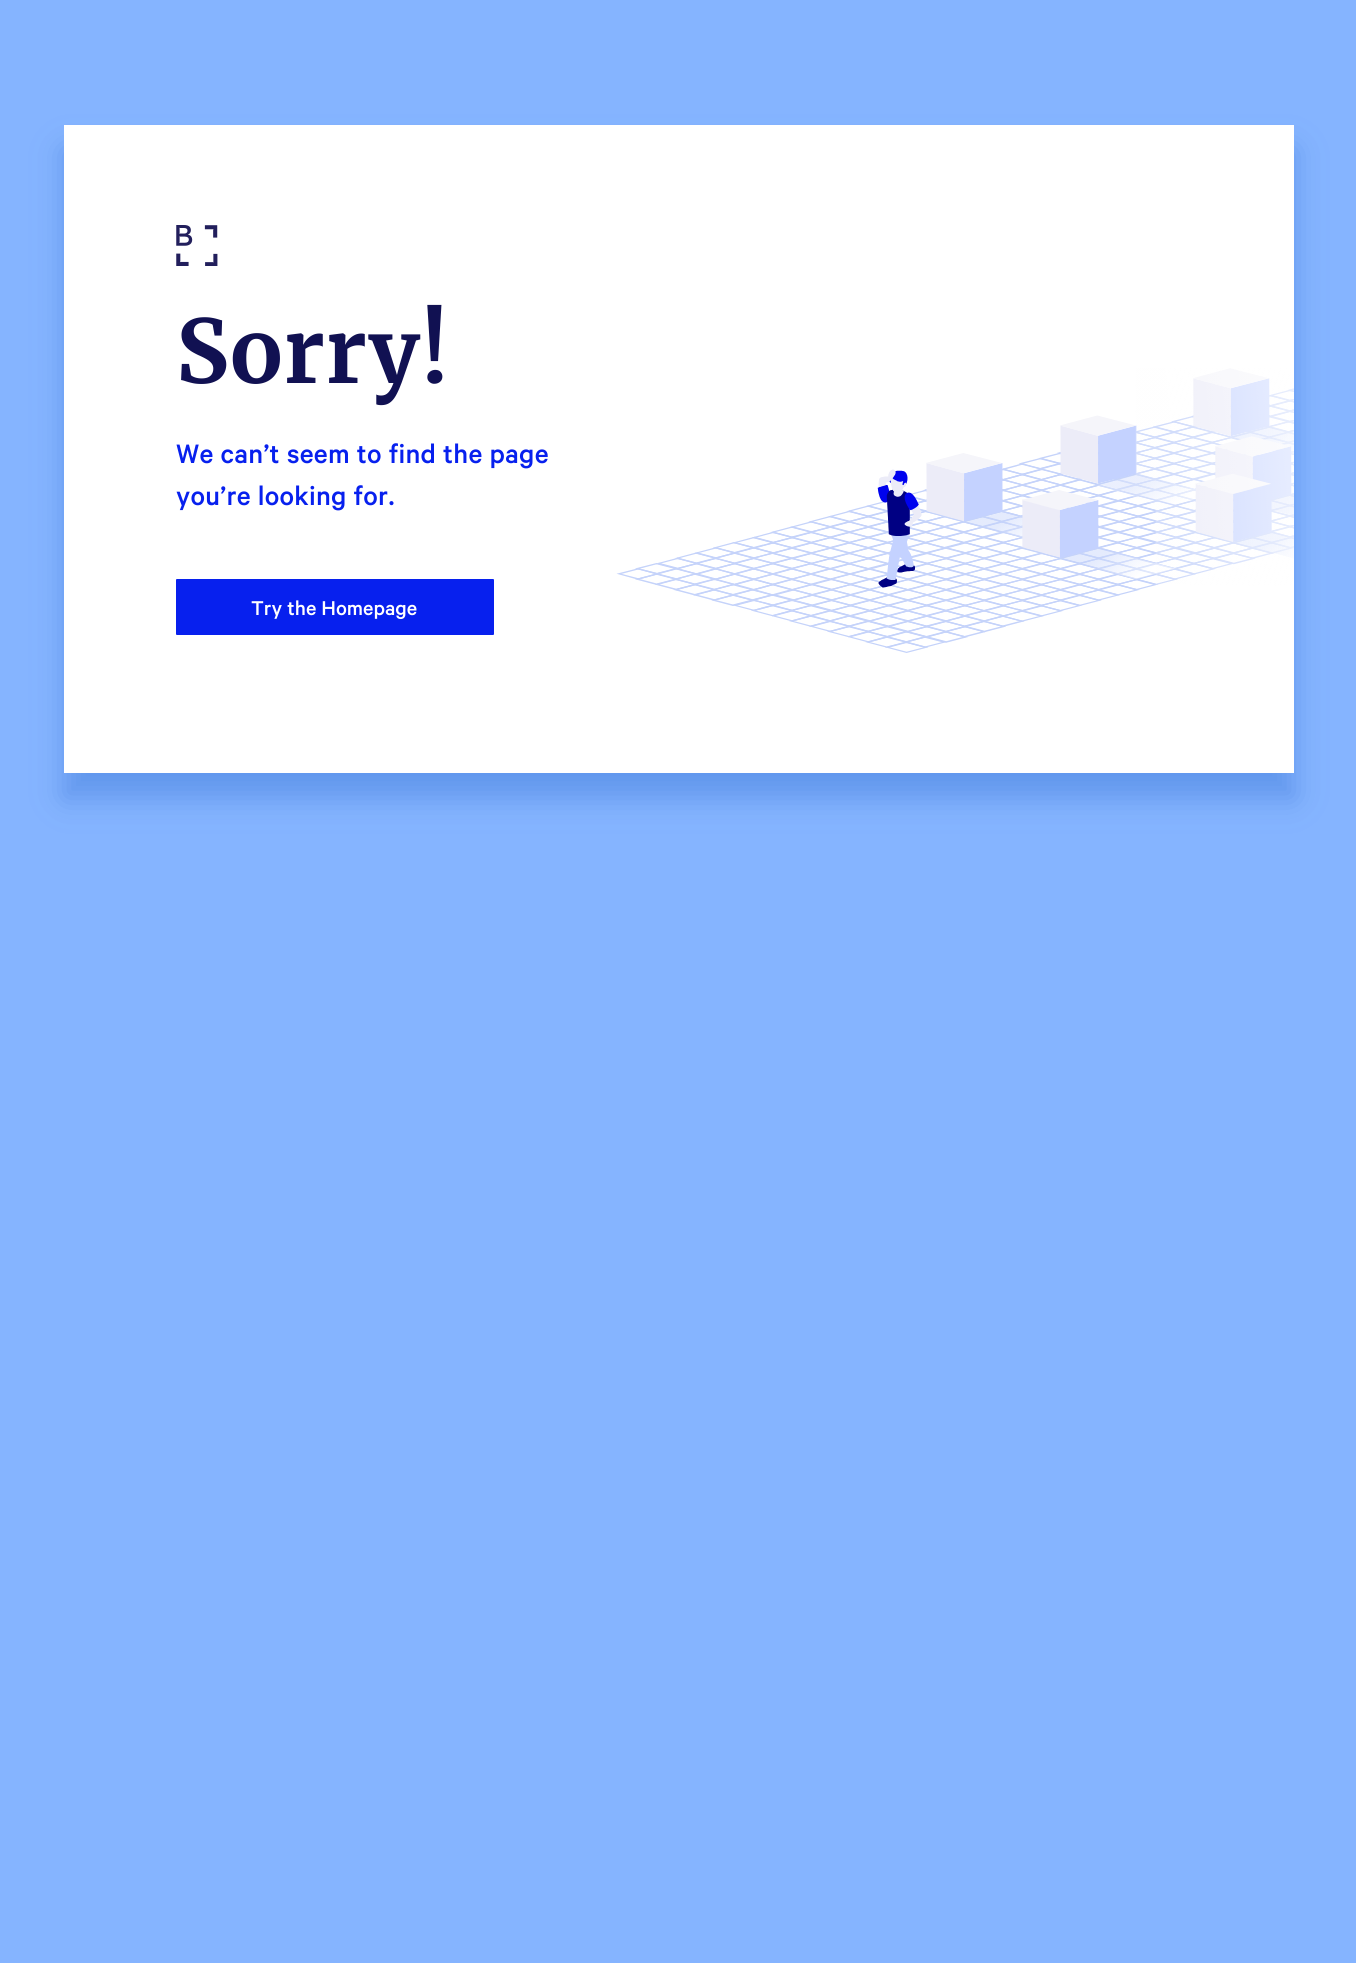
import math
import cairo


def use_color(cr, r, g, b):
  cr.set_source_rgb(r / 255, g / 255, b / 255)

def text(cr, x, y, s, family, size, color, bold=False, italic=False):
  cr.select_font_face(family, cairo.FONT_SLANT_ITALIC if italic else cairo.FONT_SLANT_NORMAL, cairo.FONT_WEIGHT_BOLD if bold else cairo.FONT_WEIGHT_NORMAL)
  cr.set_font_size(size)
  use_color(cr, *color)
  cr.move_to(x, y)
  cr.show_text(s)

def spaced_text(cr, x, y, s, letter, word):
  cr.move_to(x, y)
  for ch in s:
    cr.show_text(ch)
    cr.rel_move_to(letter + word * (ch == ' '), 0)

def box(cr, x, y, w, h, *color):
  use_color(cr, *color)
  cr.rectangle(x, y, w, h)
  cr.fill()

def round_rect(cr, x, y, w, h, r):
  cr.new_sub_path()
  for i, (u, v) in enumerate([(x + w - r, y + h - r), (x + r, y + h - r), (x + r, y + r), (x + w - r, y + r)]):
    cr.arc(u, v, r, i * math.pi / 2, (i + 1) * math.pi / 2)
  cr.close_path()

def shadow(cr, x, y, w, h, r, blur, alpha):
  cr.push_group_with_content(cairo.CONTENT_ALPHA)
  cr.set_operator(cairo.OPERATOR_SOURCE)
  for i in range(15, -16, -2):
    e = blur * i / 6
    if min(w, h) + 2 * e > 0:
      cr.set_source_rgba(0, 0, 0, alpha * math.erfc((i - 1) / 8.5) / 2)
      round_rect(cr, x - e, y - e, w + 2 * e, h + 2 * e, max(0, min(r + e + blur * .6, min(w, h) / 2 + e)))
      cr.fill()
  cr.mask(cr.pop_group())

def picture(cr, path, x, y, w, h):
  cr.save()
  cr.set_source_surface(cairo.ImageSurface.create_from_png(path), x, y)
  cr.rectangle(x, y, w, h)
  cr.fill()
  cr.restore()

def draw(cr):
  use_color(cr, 133, 180, 255)
  cr.paint()
  use_color(cr, 45, 109, 210)
  shadow(cr, 64, 150, 1230, 648, 0, 14.5, 0.41)
  box(cr, 64, 125, 1230, 648, 255, 255, 255)
  picture(cr, "img_01.png", 176, 225, 42, 41)
  picture(cr, "img_02.png", 616, 368, 678, 285)
  use_color(cr, 7, 32, 238)
  round_rect(cr, 176, 579, 318, 56, 1)
  cr.fill()
  cr.select_font_face("Merriweather", cairo.FONT_SLANT_NORMAL, cairo.FONT_WEIGHT_BOLD)
  cr.set_font_size(87.5)
  use_color(cr, 17, 17, 82)
  spaced_text(cr, 176, 383, "Sorry!", 1.5, 0)
  cr.select_font_face("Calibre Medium")
  cr.set_font_size(30)
  use_color(cr, 7, 32, 238)
  spaced_text(cr, 176, 463, "We can’t seem to find the page", 0.25, 0)
  spaced_text(cr, 176, 505, "you’re looking for.", 0.25, 0)
  text(cr, 251, 615, "Try the Homepage", "Calibre Medium", 22.5, (255, 255, 255))


surface = cairo.ImageSurface(cairo.FORMAT_RGB24, 1356, 1963)
cr = cairo.Context(surface)
options = cairo.FontOptions()
options.set_hint_metrics(cairo.HINT_METRICS_OFF)
options.set_hint_style(cairo.HINT_STYLE_NONE)
cr.set_font_options(options)
cr.set_miter_limit(4)
draw(cr)
surface.write_to_png("out.png")
